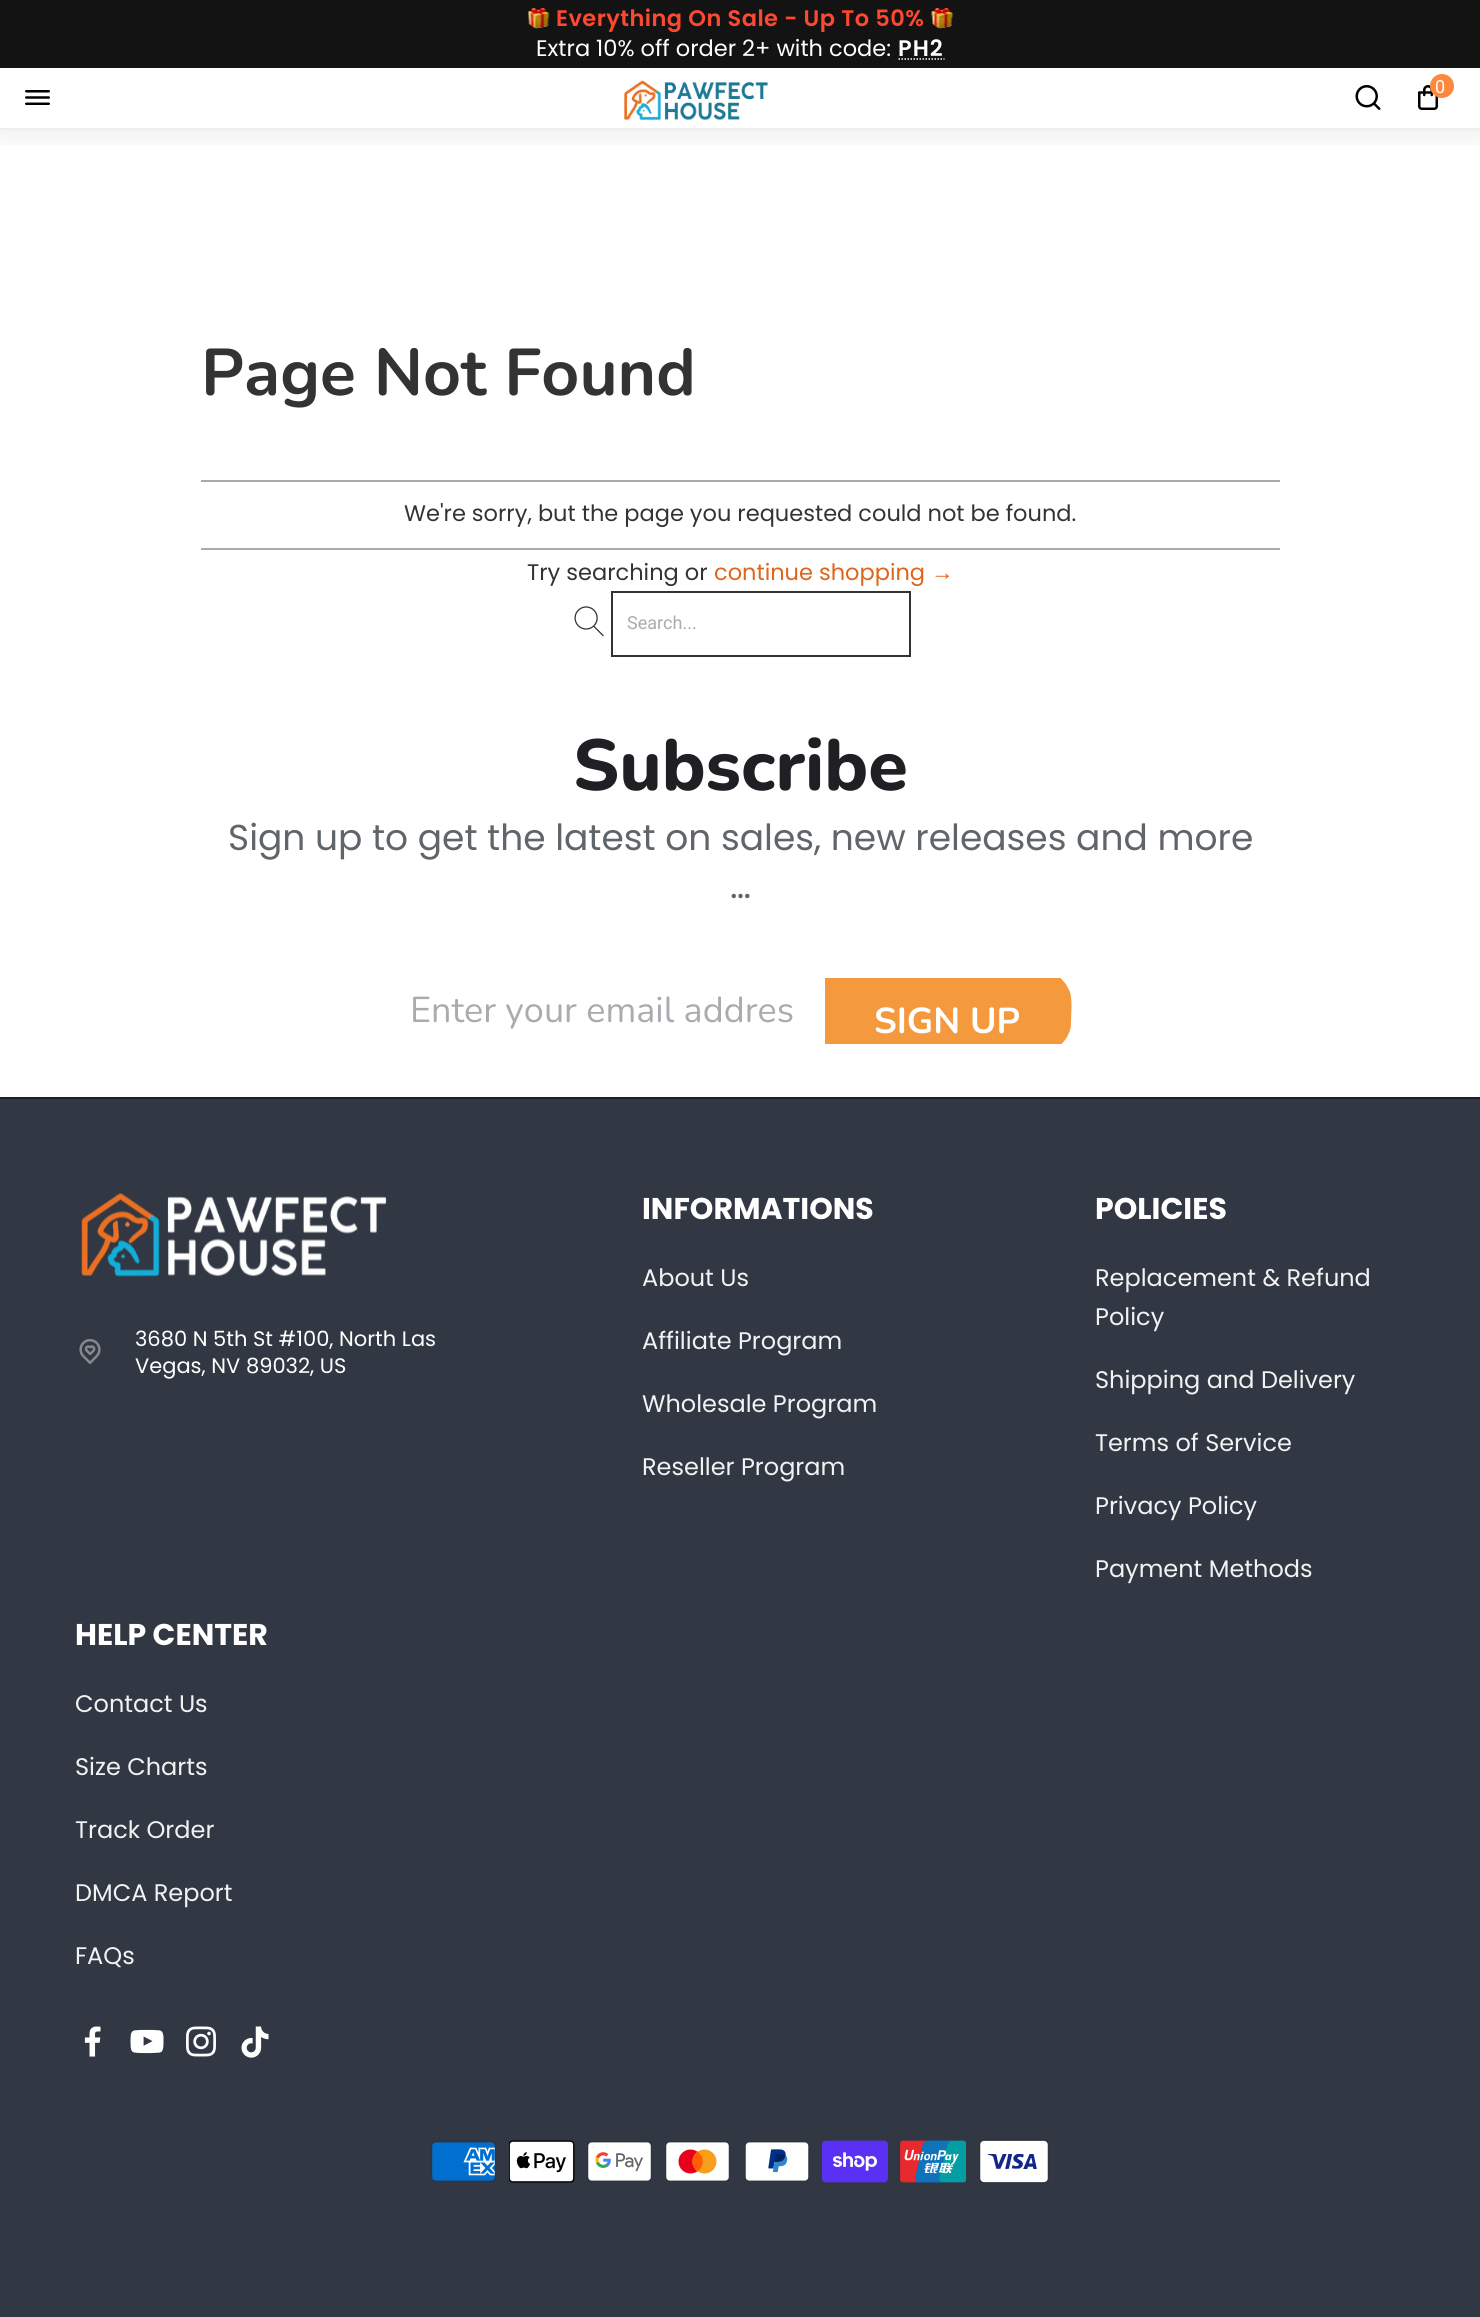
import math
import cairo


def use_color(cr, r, g, b):
  cr.set_source_rgb(r / 255, g / 255, b / 255)

def text(cr, x, y, s, family, size, color, bold=False, italic=False):
  cr.select_font_face(family, cairo.FONT_SLANT_ITALIC if italic else cairo.FONT_SLANT_NORMAL, cairo.FONT_WEIGHT_BOLD if bold else cairo.FONT_WEIGHT_NORMAL)
  cr.set_font_size(size)
  use_color(cr, *color)
  cr.move_to(x, y)
  cr.show_text(s)

def spaced_text(cr, x, y, s, letter, word):
  cr.move_to(x, y)
  for ch in s:
    cr.show_text(ch)
    cr.rel_move_to(letter + word * (ch == ' '), 0)

def box(cr, x, y, w, h, *color):
  use_color(cr, *color)
  cr.rectangle(x, y, w, h)
  cr.fill()

def round_rect(cr, x, y, w, h, r):
  cr.new_sub_path()
  for i, (u, v) in enumerate([(x + w - r, y + h - r), (x + r, y + h - r), (x + r, y + r), (x + w - r, y + r)]):
    cr.arc(u, v, r, i * math.pi / 2, (i + 1) * math.pi / 2)
  cr.close_path()

def shadow(cr, x, y, w, h, r, blur, alpha):
  cr.push_group_with_content(cairo.CONTENT_ALPHA)
  cr.set_operator(cairo.OPERATOR_SOURCE)
  for i in range(15, -16, -2):
    e = blur * i / 6
    if min(w, h) + 2 * e > 0:
      cr.set_source_rgba(0, 0, 0, alpha * math.erfc((i - 1) / 8.5) / 2)
      round_rect(cr, x - e, y - e, w + 2 * e, h + 2 * e, max(0, min(r + e + blur * .6, min(w, h) / 2 + e)))
      cr.fill()
  cr.mask(cr.pop_group())

def picture(cr, path, x, y, w, h):
  cr.save()
  cr.set_source_surface(cairo.ImageSurface.create_from_png(path), x, y)
  cr.rectangle(x, y, w, h)
  cr.fill()
  cr.restore()

def draw(cr):
  use_color(cr, 255, 255, 255)
  cr.paint()
  cr.save()
  cr.rectangle(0, 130, 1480, 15)
  cr.clip()
  use_color(cr, 0, 0, 0)
  shadow(cr, 0, 68, 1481, 61, 0, 19, 0.1)
  cr.restore()
  box(cr, 0, 0, 1480, 68, 19, 19, 19)
  picture(cr, "img_01.png", 528, 8, 22, 21)
  picture(cr, "img_02.png", 931, 8, 22, 21)
  cr.new_path()
  cr.move_to(898.5, 59)
  cr.line_to(944.5, 59)
  use_color(cr, 255, 255, 255)
  cr.set_line_width(1.5)
  cr.set_dash([1.5, 1.5])
  cr.stroke()
  box(cr, 0, 128, 1480, 2, 238, 238, 238)
  picture(cr, "img_03.png", 624, 80, 144, 40)
  picture(cr, "img_04.png", 1355, 85, 26, 25)
  picture(cr, "img_05.png", 1418, 85, 20, 25)
  use_color(cr, 253, 136, 62)
  cr.arc(1442, 86, 12, 0, 2 * math.pi)
  cr.fill()
  picture(cr, "img_06.png", 25, 90, 25, 15)
  box(cr, 201, 480, 1079, 2, 170, 170, 170)
  box(cr, 201, 548, 1079, 2, 170, 170, 170)
  picture(cr, "img_07.png", 574, 606, 30, 31)
  cr.rectangle(612, 592, 298, 64)
  use_color(cr, 51, 51, 51)
  cr.set_line_width(2)
  cr.set_dash([])
  cr.stroke()
  cr.save()
  round_rect(cr, 396, 971, 675, 81, 30)
  cr.clip()
  box(cr, 827, 978, 244, 66, 244, 153, 61)
  cr.restore()
  use_color(cr, 244, 153, 61)
  cr.set_fill_rule(cairo.FILL_RULE_EVEN_ODD)
  cr.new_path()
  cr.move_to(1071, 1022)
  cr.curve_to(1071, 1012, 1073, 999, 1069, 990)
  cr.line_to(1069, 1033)
  cr.curve_to(1070, 1029, 1071, 1026, 1071, 1022)
  cr.close_path()
  cr.move_to(825, 978)
  cr.line_to(1060, 978)
  cr.line_to(1062, 980)
  cr.line_to(827, 980)
  cr.line_to(827, 1042)
  cr.line_to(1063, 1042)
  cr.line_to(1061, 1044)
  cr.line_to(825, 1044)
  cr.close_path()
  cr.fill()
  box(cr, 0, 1099, 1480, 1218, 50, 56, 67)
  box(cr, 0, 1097, 1480, 2, 27, 31, 35)
  picture(cr, "img_08.png", 81, 1193, 306, 84)
  picture(cr, "img_09.png", 79, 1338, 22, 26)
  picture(cr, "img_10.png", 84, 2026, 17, 31)
  picture(cr, "img_11.png", 130, 2029, 34, 25)
  picture(cr, "img_12.png", 186, 2026, 30, 31)
  picture(cr, "img_13.png", 241, 2026, 28, 32)
  picture(cr, "img_14.png", 431, 2141, 65, 41)
  picture(cr, "img_15.png", 509, 2140, 66, 43)
  picture(cr, "img_16.png", 587, 2141, 65, 41)
  picture(cr, "img_17.png", 665, 2141, 65, 41)
  picture(cr, "img_18.png", 744, 2141, 66, 41)
  picture(cr, "img_19.png", 822, 2140, 66, 43)
  picture(cr, "img_20.png", 900, 2140, 66, 43)
  picture(cr, "img_21.png", 979, 2139, 70, 45)
  cr.select_font_face("Poppins SemiBold")
  cr.set_font_size(22.5)
  use_color(cr, 255, 72, 48)
  spaced_text(cr, 556, 26, "Everything On Sale - Up To 50%", 0.45, 0)
  text(cr, 536, 56, "Extra 10% off order 2+ with code:", "Poppins", 22.5, (255, 255, 255))
  cr.select_font_face("Poppins SemiBold")
  spaced_text(cr, 898, 56, "PH2", 1, 0)
  cr.select_font_face("Roboto")
  cr.set_font_size(18)
  spaced_text(cr, 1435, 93, "0", 2, 0)
  text(cr, 201, 395, "Page Not Found", "Nunito", 66, (51, 51, 51), bold=True)
  text(cr, 404, 521, "We're sorry, but the page you requested could not be found.", "Poppins", 22.5, (51, 51, 51))
  text(cr, 527, 580, "Try searching or", "Poppins", 22.5, (51, 51, 51))
  text(cr, 714, 580, "continue shopping", "Poppins", 22.5, (223, 101, 24))
  text(cr, 931, 580, "→", "Liberation Sans", 22.5, (223, 101, 24))
  text(cr, 627, 629, "Search...", "Roboto", 18, (169, 172, 175))
  text(cr, 573, 790, "Subscribe", "Nunito ExtraBold", 72, (32, 32, 36))
  text(cr, 228, 850, "Sign up to get the latest on sales, new releases and more", "Poppins", 36, (96, 101, 106))
  text(cr, 730, 898, "…", "Poppins", 36, (96, 101, 106))
  text(cr, 410, 1022, "Enter your email addres", "Nunito", 36, (169, 172, 175))
  text(cr, 874, 1033, "SIGN UP", "Nunito", 36, (255, 255, 255), bold=True)
  text(cr, 135, 1346, "3680 N 5th St #100, North Las", "Poppins", 21, (255, 255, 255))
  text(cr, 135, 1373, "Vegas, NV 89032, US", "Poppins", 21, (255, 255, 255))
  text(cr, 642, 1219, "INFORMATIONS", "Poppins", 30, (255, 255, 255), bold=True)
  text(cr, 642, 1286, "About Us", "Poppins", 24, (242, 242, 243))
  text(cr, 642, 1349, "Affiliate Program", "Poppins", 24, (242, 242, 243))
  text(cr, 642, 1412, "Wholesale Program", "Poppins", 24, (242, 242, 243))
  text(cr, 642, 1475, "Reseller Program", "Poppins", 24, (242, 242, 243))
  text(cr, 1095, 1219, "POLICIES", "Poppins", 30, (255, 255, 255), bold=True)
  text(cr, 1095, 1286, "Replacement & Refund", "Poppins", 24, (242, 242, 243))
  text(cr, 1095, 1325, "Policy", "Poppins", 24, (242, 242, 243))
  text(cr, 1095, 1388, "Shipping and Delivery", "Poppins", 24, (242, 242, 243))
  text(cr, 1095, 1451, "Terms of Service", "Poppins", 24, (242, 242, 243))
  text(cr, 1095, 1514, "Privacy Policy", "Poppins", 24, (242, 242, 243))
  text(cr, 1095, 1577, "Payment Methods", "Poppins", 24, (242, 242, 243))
  text(cr, 75, 1645, "HELP CENTER", "Poppins", 30, (255, 255, 255), bold=True)
  text(cr, 75, 1712, "Contact Us", "Poppins", 24, (242, 242, 243))
  text(cr, 75, 1775, "Size Charts", "Poppins", 24, (242, 242, 243))
  text(cr, 75, 1838, "Track Order", "Poppins", 24, (242, 242, 243))
  text(cr, 75, 1901, "DMCA Report", "Poppins", 24, (242, 242, 243))
  text(cr, 75, 1964, "FAQs", "Poppins", 24, (242, 242, 243))


surface = cairo.ImageSurface(cairo.FORMAT_RGB24, 1480, 2317)
cr = cairo.Context(surface)
options = cairo.FontOptions()
options.set_hint_metrics(cairo.HINT_METRICS_OFF)
options.set_hint_style(cairo.HINT_STYLE_NONE)
cr.set_font_options(options)
cr.set_miter_limit(4)
draw(cr)
surface.write_to_png("out.png")
